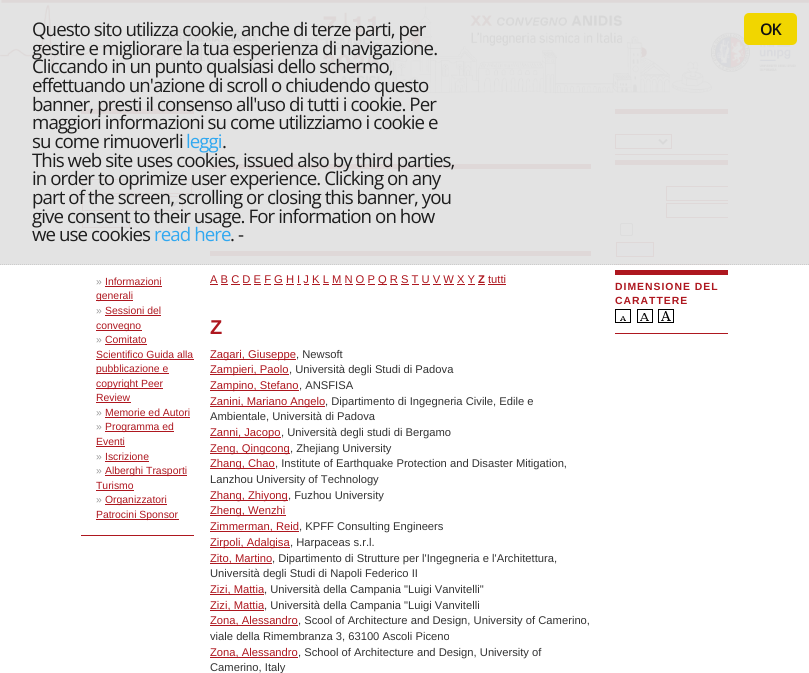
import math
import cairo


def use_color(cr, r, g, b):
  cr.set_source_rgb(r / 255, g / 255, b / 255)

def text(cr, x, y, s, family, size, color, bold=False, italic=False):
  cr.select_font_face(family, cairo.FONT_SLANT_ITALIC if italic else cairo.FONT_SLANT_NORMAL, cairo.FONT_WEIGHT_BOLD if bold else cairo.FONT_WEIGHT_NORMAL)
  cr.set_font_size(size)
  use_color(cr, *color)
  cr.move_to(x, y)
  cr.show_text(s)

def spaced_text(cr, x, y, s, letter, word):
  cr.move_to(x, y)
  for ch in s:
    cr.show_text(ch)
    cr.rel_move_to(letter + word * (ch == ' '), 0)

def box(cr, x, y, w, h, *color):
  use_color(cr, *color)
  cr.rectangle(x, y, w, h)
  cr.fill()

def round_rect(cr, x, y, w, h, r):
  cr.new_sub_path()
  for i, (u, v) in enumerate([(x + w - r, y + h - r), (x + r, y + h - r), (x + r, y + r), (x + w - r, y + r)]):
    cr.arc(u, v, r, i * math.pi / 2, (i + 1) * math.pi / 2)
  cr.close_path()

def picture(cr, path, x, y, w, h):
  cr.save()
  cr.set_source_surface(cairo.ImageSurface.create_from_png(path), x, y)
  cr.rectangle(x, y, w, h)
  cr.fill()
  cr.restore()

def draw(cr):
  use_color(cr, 255, 255, 255)
  cr.paint()
  picture(cr, "img_01.png", 0, 0, 809, 99)
  box(cr, 210, 164, 381, 5, 174, 23, 31)
  box(cr, 210, 251, 381, 5, 174, 23, 31)
  box(cr, 81, 109, 113, 5, 174, 23, 31)
  cr.rectangle(82.5, 179.5, 109, 14)
  cr.set_line_width(1)
  cr.stroke()
  cr.rectangle(82.5, 196.5, 100, 14)
  cr.stroke()
  cr.new_path()
  cr.move_to(170, 201)
  cr.line_to(174, 205)
  cr.line_to(178, 201)
  use_color(cr, 51, 51, 51)
  cr.set_line_width(2)
  cr.stroke()
  use_color(cr, 238, 238, 255)
  cr.rectangle(82.5, 213.5, 47, 14)
  cr.fill_preserve()
  use_color(cr, 174, 23, 31)
  cr.set_line_width(1)
  cr.stroke()
  box(cr, 615, 109, 113, 5, 174, 23, 31)
  box(cr, 615, 154, 113, 1, 174, 23, 31)
  cr.rectangle(615.5, 134.5, 56, 14)
  cr.stroke()
  cr.new_path()
  cr.move_to(659, 139.5)
  cr.line_to(663, 143.5)
  cr.line_to(667, 139.5)
  use_color(cr, 51, 51, 51)
  cr.set_line_width(2)
  cr.stroke()
  box(cr, 615, 160, 113, 5, 174, 23, 31)
  box(cr, 615, 264, 113, 1, 174, 23, 31)
  cr.save()
  cr.rectangle(615, 99, 113, 250)
  cr.clip()
  cr.rectangle(666.5, 186.5, 91, 14)
  cr.set_line_width(1)
  cr.stroke()
  cr.rectangle(666.5, 203.5, 91, 14)
  cr.stroke()
  cr.restore()
  round_rect(cr, 620.5, 223.5, 12, 12, 1.5)
  use_color(cr, 118, 118, 118)
  cr.set_line_width(1)
  cr.stroke()
  use_color(cr, 238, 238, 255)
  cr.rectangle(616.5, 242.5, 37, 14)
  cr.fill_preserve()
  use_color(cr, 174, 23, 31)
  cr.stroke()
  cr.set_source_rgba(0.886, 0.886, 0.886, 0.95)
  cr.rectangle(0, 0, 809, 265)
  cr.fill()
  cr.new_path()
  cr.move_to(0, 264.5)
  cr.line_to(809, 264.5)
  use_color(cr, 204, 204, 204)
  cr.set_dash([1, 1])
  cr.stroke()
  use_color(cr, 241, 214, 0)
  round_rect(cr, 744, 13, 53, 32, 5)
  cr.fill()
  box(cr, 210, 284, 8, 1, 174, 23, 31)
  box(cr, 378, 284, 9, 1, 174, 23, 31)
  box(cr, 478, 284, 7, 1, 174, 23, 31)
  box(cr, 488, 284, 18, 1, 174, 23, 31)
  box(cr, 221, 284, 7, 1, 174, 23, 31)
  box(cr, 231, 284, 9, 1, 174, 23, 31)
  box(cr, 243, 284, 8, 1, 174, 23, 31)
  box(cr, 254, 284, 7, 1, 174, 23, 31)
  box(cr, 264, 284, 7, 1, 174, 23, 31)
  box(cr, 274, 284, 9, 1, 174, 23, 31)
  box(cr, 286, 284, 8, 1, 174, 23, 31)
  box(cr, 297, 284, 4, 1, 174, 23, 31)
  box(cr, 304, 284, 5, 1, 174, 23, 31)
  box(cr, 312, 284, 8, 1, 174, 23, 31)
  box(cr, 323, 284, 6, 1, 174, 23, 31)
  box(cr, 332, 284, 10, 1, 174, 23, 31)
  box(cr, 345, 284, 8, 1, 174, 23, 31)
  box(cr, 356, 284, 9, 1, 174, 23, 31)
  box(cr, 368, 284, 7, 1, 174, 23, 31)
  box(cr, 390, 284, 8, 1, 174, 23, 31)
  box(cr, 401, 284, 8, 1, 174, 23, 31)
  box(cr, 412, 284, 7, 1, 174, 23, 31)
  box(cr, 422, 284, 8, 1, 174, 23, 31)
  box(cr, 433, 284, 8, 1, 174, 23, 31)
  box(cr, 444, 284, 10, 1, 174, 23, 31)
  box(cr, 457, 284, 8, 1, 174, 23, 31)
  box(cr, 468, 284, 7, 1, 174, 23, 31)
  box(cr, 210, 359, 86, 1, 174, 23, 31)
  box(cr, 210, 374, 79, 1, 174, 23, 31)
  box(cr, 210, 390, 89, 1, 174, 23, 31)
  box(cr, 210, 406, 115, 1, 174, 23, 31)
  box(cr, 210, 437, 71, 1, 174, 23, 31)
  box(cr, 210, 453, 80, 1, 174, 23, 31)
  box(cr, 210, 468, 65, 1, 174, 23, 31)
  box(cr, 210, 500, 78, 1, 174, 23, 31)
  box(cr, 210, 515, 76, 1, 174, 23, 31)
  box(cr, 210, 531, 89, 1, 174, 23, 31)
  box(cr, 210, 547, 80, 1, 174, 23, 31)
  box(cr, 210, 563, 62, 1, 174, 23, 31)
  box(cr, 210, 594, 54, 1, 174, 23, 31)
  box(cr, 210, 610, 54, 1, 174, 23, 31)
  box(cr, 210, 625, 88, 1, 174, 23, 31)
  box(cr, 210, 657, 88, 1, 174, 23, 31)
  box(cr, 81, 535, 113, 1, 174, 23, 31)
  box(cr, 105, 286, 57, 1, 174, 23, 31)
  box(cr, 96, 300, 37, 1, 174, 23, 31)
  box(cr, 105, 315, 56, 1, 174, 23, 31)
  box(cr, 96, 330, 46, 1, 174, 23, 31)
  box(cr, 105, 344, 42, 1, 174, 23, 31)
  box(cr, 96, 359, 98, 1, 174, 23, 31)
  box(cr, 96, 373, 73, 1, 174, 23, 31)
  box(cr, 96, 388, 67, 1, 174, 23, 31)
  box(cr, 96, 402, 35, 1, 174, 23, 31)
  box(cr, 105, 417, 85, 1, 174, 23, 31)
  box(cr, 105, 431, 69, 1, 174, 23, 31)
  box(cr, 96, 446, 29, 1, 174, 23, 31)
  box(cr, 105, 461, 44, 1, 174, 23, 31)
  box(cr, 105, 475, 82, 1, 174, 23, 31)
  box(cr, 96, 490, 38, 1, 174, 23, 31)
  box(cr, 105, 504, 62, 1, 174, 23, 31)
  box(cr, 96, 519, 83, 1, 174, 23, 31)
  box(cr, 615, 270, 113, 5, 174, 23, 31)
  box(cr, 615, 333, 113, 1, 174, 23, 31)
  picture(cr, "img_02.png", 615, 309, 16, 14)
  picture(cr, "img_03.png", 637, 309, 16, 14)
  picture(cr, "img_04.png", 658, 309, 16, 14)
  cr.select_font_face("Open Sans")
  cr.set_font_size(18.7)
  use_color(cr, 29, 29, 29)
  spaced_text(cr, 32, 36, "Questo sito utilizza cookie, anche di terze parti, per", -0.93, 0)
  spaced_text(cr, 32, 55, "gestire e migliorare la tua esperienza di navigazione.", -0.93, 0)
  spaced_text(cr, 32, 73, "Cliccando in un punto qualsiasi dello schermo,", -0.93, 0)
  spaced_text(cr, 32, 92, "effettuando un'azione di scroll o chiudendo questo", -0.93, 0)
  spaced_text(cr, 32, 111, "banner, presti il consenso all'uso di tutti i cookie. Per", -0.93, 0)
  spaced_text(cr, 32, 129, "maggiori informazioni su come utilizziamo i cookie e", -0.93, 0)
  spaced_text(cr, 32, 148, "su come rimuoverli", -0.93, 0)
  use_color(cr, 49, 168, 240)
  spaced_text(cr, 186, 148, "leggi", -0.93, 0)
  use_color(cr, 29, 29, 29)
  spaced_text(cr, 222, 148, ".", -0.93, 0)
  spaced_text(cr, 32, 167, "This web site uses cookies, issued also by third parties,", -0.93, 0)
  spaced_text(cr, 32, 185, "in order to oprimize user experience. Clicking on any", -0.93, 0)
  spaced_text(cr, 32, 204, "part of the screen, scrolling or closing this banner, you", -0.93, 0)
  spaced_text(cr, 32, 223, "give consent to their usage. For information on how", -0.93, 0)
  spaced_text(cr, 32, 241, "we use cookies", -0.93, 0)
  use_color(cr, 49, 168, 240)
  spaced_text(cr, 154, 241, "read here", -0.93, 0)
  use_color(cr, 29, 29, 29)
  spaced_text(cr, 230, 241, ". -", -0.93, 0)
  cr.select_font_face("Open Sans SemiBold")
  cr.set_font_size(16)
  use_color(cr, 17, 17, 17)
  spaced_text(cr, 760, 35, "OK", -1, 0)
  text(cr, 210, 283, "A B C D E F G H I J K L M N O P", "Liberation Sans", 11.2, (174, 23, 31))
  text(cr, 378, 283, "Q R S T U V W X Y", "Liberation Sans", 11.2, (174, 23, 31))
  text(cr, 478, 283, "Z", "Liberation Sans", 11.2, (174, 23, 31), bold=True)
  text(cr, 488, 283, "tutti", "Liberation Sans", 11.2, (174, 23, 31))
  text(cr, 210, 334, "Z", "Liberation Sans", 20, (174, 23, 31), bold=True)
  text(cr, 210, 358, "Zagari, Giuseppe", "Liberation Sans", 11.2, (174, 23, 31))
  text(cr, 296, 358, ", Newsoft", "Liberation Sans", 11.2, (51, 51, 51))
  text(cr, 210, 373, "Zampieri, Paolo", "Liberation Sans", 11.2, (174, 23, 31))
  text(cr, 289, 373, ", Università degli Studi di Padova", "Liberation Sans", 11.2, (51, 51, 51))
  text(cr, 210, 389, "Zampino, Stefano", "Liberation Sans", 11.2, (174, 23, 31))
  text(cr, 299, 389, ", ANSFISA", "Liberation Sans", 11.2, (51, 51, 51))
  text(cr, 210, 405, "Zanini, Mariano Angelo", "Liberation Sans", 11.2, (174, 23, 31))
  text(cr, 325, 405, ", Dipartimento di Ingegneria Civile, Edile e", "Liberation Sans", 11.2, (51, 51, 51))
  text(cr, 210, 420, "Ambientale, Università di Padova", "Liberation Sans", 11.2, (51, 51, 51))
  text(cr, 210, 436, "Zanni, Jacopo", "Liberation Sans", 11.2, (174, 23, 31))
  text(cr, 281, 436, ", Università degli studi di Bergamo", "Liberation Sans", 11.2, (51, 51, 51))
  text(cr, 210, 452, "Zeng, Qingcong", "Liberation Sans", 11.2, (174, 23, 31))
  text(cr, 290, 452, ", Zhejiang University", "Liberation Sans", 11.2, (51, 51, 51))
  text(cr, 210, 467, "Zhang, Chao", "Liberation Sans", 11.2, (174, 23, 31))
  text(cr, 275, 467, ", Institute of Earthquake Protection and Disaster Mitigation,", "Liberation Sans", 11.2, (51, 51, 51))
  text(cr, 210, 483, "Lanzhou University of Technology", "Liberation Sans", 11.2, (51, 51, 51))
  text(cr, 210, 499, "Zhang, Zhiyong", "Liberation Sans", 11.2, (174, 23, 31))
  text(cr, 288, 499, ", Fuzhou University", "Liberation Sans", 11.2, (51, 51, 51))
  text(cr, 210, 514, "Zheng, Wenzhi", "Liberation Sans", 11.2, (174, 23, 31))
  text(cr, 210, 530, "Zimmerman, Reid", "Liberation Sans", 11.2, (174, 23, 31))
  text(cr, 299, 530, ", KPFF Consulting Engineers", "Liberation Sans", 11.2, (51, 51, 51))
  text(cr, 210, 546, "Zirpoli, Adalgisa", "Liberation Sans", 11.2, (174, 23, 31))
  text(cr, 290, 546, ", Harpaceas s.r.l.", "Liberation Sans", 11.2, (51, 51, 51))
  text(cr, 210, 562, "Zito, Martino", "Liberation Sans", 11.2, (174, 23, 31))
  text(cr, 272, 562, ", Dipartimento di Strutture per l'Ingegneria e l'Architettura,", "Liberation Sans", 11.2, (51, 51, 51))
  text(cr, 210, 577, "Università degli Studi di Napoli Federico II", "Liberation Sans", 11.2, (51, 51, 51))
  text(cr, 210, 593, "Zizi, Mattia", "Liberation Sans", 11.2, (174, 23, 31))
  text(cr, 264, 593, ", Università della Campania \"Luigi Vanvitelli\"", "Liberation Sans", 11.2, (51, 51, 51))
  text(cr, 210, 609, "Zizi, Mattia", "Liberation Sans", 11.2, (174, 23, 31))
  text(cr, 264, 609, ", Università della Campania \"Luigi Vanvitelli", "Liberation Sans", 11.2, (51, 51, 51))
  text(cr, 210, 624, "Zona, Alessandro", "Liberation Sans", 11.2, (174, 23, 31))
  text(cr, 298, 624, ", Scool of Architecture and Design, University of Camerino,", "Liberation Sans", 11.2, (51, 51, 51))
  text(cr, 210, 640, "viale della Rimembranza 3, 63100 Ascoli Piceno", "Liberation Sans", 11.2, (51, 51, 51))
  text(cr, 210, 656, "Zona, Alessandro", "Liberation Sans", 11.2, (174, 23, 31))
  text(cr, 298, 656, ", School of Architecture and Design, University of", "Liberation Sans", 11.2, (51, 51, 51))
  text(cr, 210, 671, "Camerino, Italy", "Liberation Sans", 11.2, (51, 51, 51))
  text(cr, 96, 285, "»", "Liberation Sans", 10.4, (153, 153, 153))
  text(cr, 105, 285, "Informazioni", "Liberation Sans", 10.4, (174, 23, 31))
  text(cr, 96, 299, "generali", "Liberation Sans", 10.4, (174, 23, 31))
  text(cr, 96, 314, "»", "Liberation Sans", 10.4, (153, 153, 153))
  text(cr, 105, 314, "Sessioni del", "Liberation Sans", 10.4, (174, 23, 31))
  text(cr, 96, 329, "convegno", "Liberation Sans", 10.4, (174, 23, 31))
  text(cr, 96, 343, "»", "Liberation Sans", 10.4, (153, 153, 153))
  text(cr, 105, 343, "Comitato", "Liberation Sans", 10.4, (174, 23, 31))
  text(cr, 96, 358, "Scientifico Guida alla", "Liberation Sans", 10.4, (174, 23, 31))
  text(cr, 96, 372, "pubblicazione e", "Liberation Sans", 10.4, (174, 23, 31))
  text(cr, 96, 387, "copyright Peer", "Liberation Sans", 10.4, (174, 23, 31))
  text(cr, 96, 401, "Review", "Liberation Sans", 10.4, (174, 23, 31))
  text(cr, 96, 416, "»", "Liberation Sans", 10.4, (153, 153, 153))
  text(cr, 105, 416, "Memorie ed Autori", "Liberation Sans", 10.4, (174, 23, 31))
  text(cr, 96, 430, "»", "Liberation Sans", 10.4, (153, 153, 153))
  text(cr, 105, 430, "Programma ed", "Liberation Sans", 10.4, (174, 23, 31))
  text(cr, 96, 445, "Eventi", "Liberation Sans", 10.4, (174, 23, 31))
  text(cr, 96, 460, "»", "Liberation Sans", 10.4, (153, 153, 153))
  text(cr, 105, 460, "Iscrizione", "Liberation Sans", 10.4, (174, 23, 31))
  text(cr, 96, 474, "»", "Liberation Sans", 10.4, (153, 153, 153))
  text(cr, 105, 474, "Alberghi Trasporti", "Liberation Sans", 10.4, (174, 23, 31))
  text(cr, 96, 489, "Turismo", "Liberation Sans", 10.4, (174, 23, 31))
  text(cr, 96, 503, "»", "Liberation Sans", 10.4, (153, 153, 153))
  text(cr, 105, 503, "Organizzatori", "Liberation Sans", 10.4, (174, 23, 31))
  text(cr, 96, 518, "Patrocini Sponsor", "Liberation Sans", 10.4, (174, 23, 31))
  cr.select_font_face("Liberation Sans", cairo.FONT_SLANT_NORMAL, cairo.FONT_WEIGHT_BOLD)
  spaced_text(cr, 615, 290, "DIMENSIONE DEL", 1, 0)
  spaced_text(cr, 615, 304, "CARATTERE", 1, 0)


surface = cairo.ImageSurface(cairo.FORMAT_RGB24, 809, 673)
cr = cairo.Context(surface)
options = cairo.FontOptions()
options.set_hint_metrics(cairo.HINT_METRICS_OFF)
options.set_hint_style(cairo.HINT_STYLE_NONE)
cr.set_font_options(options)
cr.set_miter_limit(4)
draw(cr)
surface.write_to_png("out.png")
